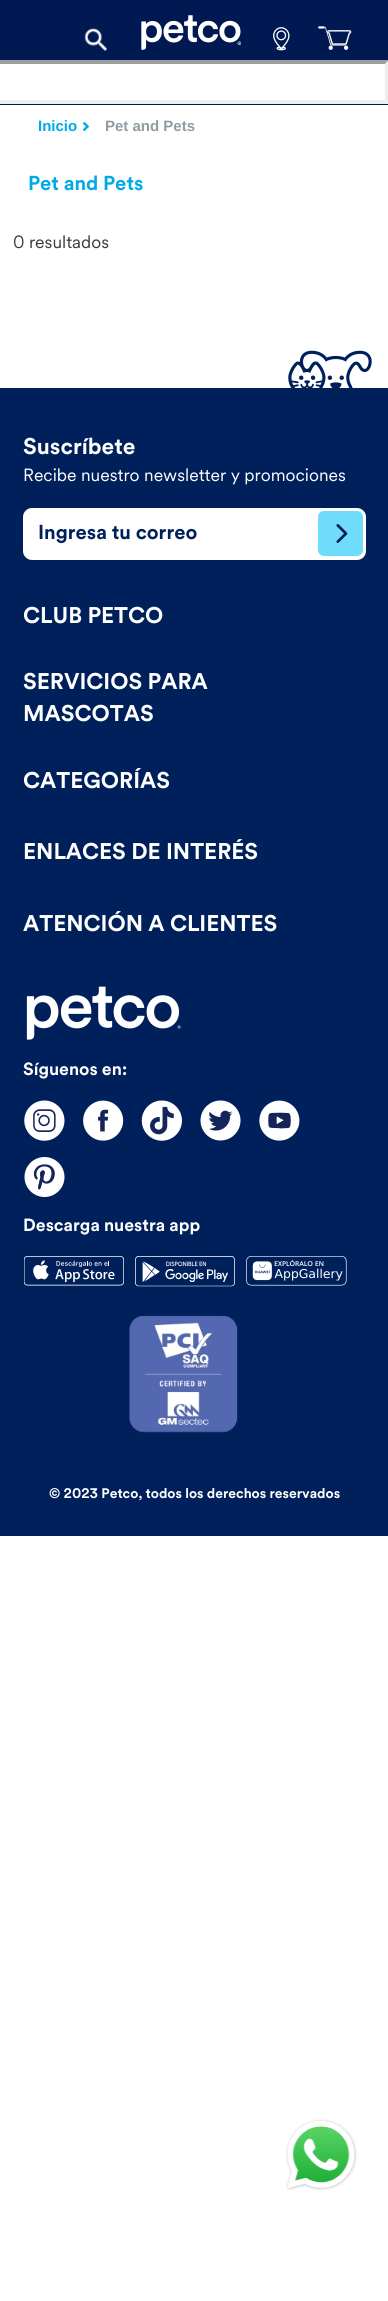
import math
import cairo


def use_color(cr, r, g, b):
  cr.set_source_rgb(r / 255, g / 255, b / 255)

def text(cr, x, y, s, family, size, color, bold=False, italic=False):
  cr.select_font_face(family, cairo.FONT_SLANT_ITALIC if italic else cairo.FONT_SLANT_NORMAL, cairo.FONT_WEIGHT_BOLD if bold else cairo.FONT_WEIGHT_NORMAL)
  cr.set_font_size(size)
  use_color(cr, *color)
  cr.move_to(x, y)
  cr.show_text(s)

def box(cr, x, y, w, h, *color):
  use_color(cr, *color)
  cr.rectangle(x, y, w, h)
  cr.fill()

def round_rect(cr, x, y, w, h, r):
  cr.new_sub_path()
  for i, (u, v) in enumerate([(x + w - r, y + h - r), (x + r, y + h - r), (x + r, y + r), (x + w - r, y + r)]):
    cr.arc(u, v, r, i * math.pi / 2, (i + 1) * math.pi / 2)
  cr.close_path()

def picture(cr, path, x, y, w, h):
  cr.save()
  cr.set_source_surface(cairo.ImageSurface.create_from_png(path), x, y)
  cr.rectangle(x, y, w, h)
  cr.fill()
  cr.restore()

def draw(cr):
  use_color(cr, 255, 255, 255)
  cr.paint()
  box(cr, 0, 0, 388, 105, 0, 25, 82)
  picture(cr, "img_01.png", 84, 28, 23, 24)
  picture(cr, "img_02.png", 141, 15, 100, 35)
  picture(cr, "img_03.png", 273, 27, 17, 24)
  picture(cr, "img_04.png", 318, 26, 34, 24)
  box(cr, 0, 61, 388, 42, 255, 255, 255)
  use_color(cr, 159, 159, 159)
  cr.new_path()
  cr.move_to(-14, 60)
  cr.line_to(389, 60)
  cr.line_to(385, 64)
  cr.line_to(-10, 64)
  cr.close_path()
  cr.fill()
  use_color(cr, 238, 238, 238)
  cr.new_path()
  cr.move_to(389, 60)
  cr.line_to(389, 104)
  cr.line_to(385, 100)
  cr.line_to(385, 64)
  cr.close_path()
  cr.fill()
  cr.new_path()
  cr.move_to(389, 104)
  cr.line_to(-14, 104)
  cr.line_to(-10, 100)
  cr.line_to(385, 100)
  cr.close_path()
  cr.fill()
  picture(cr, "img_05.png", 82, 121, 8, 11)
  picture(cr, "img_06.png", 285, 2119, 73, 72)
  picture(cr, "img_07.png", 288, 350, 84, 38)
  box(cr, 0, 388, 388, 1148, 0, 32, 91)
  use_color(cr, 255, 255, 255)
  round_rect(cr, 23, 508, 343, 52, 9)
  cr.fill()
  use_color(cr, 110, 220, 250)
  round_rect(cr, 318, 511, 45, 45, 6)
  cr.fill()
  picture(cr, "img_08.png", 336, 524, 12, 19)
  picture(cr, "img_09.png", 26, 986, 155, 54)
  picture(cr, "img_10.png", 24, 1100, 41, 41)
  picture(cr, "img_11.png", 83, 1100, 41, 41)
  picture(cr, "img_12.png", 141, 1100, 41, 41)
  picture(cr, "img_13.png", 200, 1100, 41, 41)
  picture(cr, "img_14.png", 259, 1100, 41, 41)
  picture(cr, "img_15.png", 24, 1157, 41, 40)
  picture(cr, "img_16.png", 24, 1256, 100, 30)
  picture(cr, "img_17.png", 135, 1256, 100, 31)
  picture(cr, "img_18.png", 246, 1256, 101, 30)
  picture(cr, "img_19.png", 129, 1315, 109, 118)
  text(cr, 38, 131, "Inicio", "Liberation Sans", 15, (0, 170, 231), bold=True)
  text(cr, 105, 131, "Pet and Pets", "Liberation Sans", 15, (142, 157, 162), bold=True)
  text(cr, 28, 190, "Pet and Pets", "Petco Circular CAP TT", 20, (0, 170, 231), bold=True)
  text(cr, 13, 248, "0 resultados", "Petco Circular CAP TT", 17.5, (60, 60, 60))
  text(cr, 23, 454, "Suscríbete", "Petco Circular CAP TT", 22.5, (255, 255, 255), bold=True)
  text(cr, 23, 481, "Recibe nuestro newsletter y promociones", "Petco Circular CAP TT", 17.5, (255, 255, 255))
  text(cr, 38, 539, "Ingresa tu correo", "Petco Circular CAP TT", 20, (0, 32, 91), bold=True)
  text(cr, 23, 623, "CLUB PETCO", "Petco Circular CAP TT", 22.5, (255, 255, 255), bold=True)
  text(cr, 23, 689, "SERVICIOS PARA", "Petco Circular CAP TT", 22.5, (255, 255, 255), bold=True)
  text(cr, 23, 721, "MASCOTAS", "Petco Circular CAP TT", 22.5, (255, 255, 255), bold=True)
  text(cr, 23, 788, "CATEGORÍAS", "Petco Circular CAP TT", 22.5, (255, 255, 255), bold=True)
  text(cr, 23, 859, "ENLACES DE INTERÉS", "Petco Circular CAP TT", 22.5, (255, 255, 255), bold=True)
  text(cr, 23, 931, "ATENCIÓN A CLIENTES", "Petco Circular CAP TT", 22.5, (255, 255, 255), bold=True)
  text(cr, 23, 1075, "Síguenos en:", "Petco Circular CAP TT", 17.5, (255, 255, 255), bold=True)
  text(cr, 23, 1231, "Descarga nuestra app", "Petco Circular CAP TT", 17.5, (255, 255, 255), bold=True)
  text(cr, 49, 1498, "© 2023 Petco, todos los derechos reservados", "Petco Circular CAP TT", 13.75, (255, 255, 255), bold=True)


surface = cairo.ImageSurface(cairo.FORMAT_RGB24, 388, 2301)
cr = cairo.Context(surface)
options = cairo.FontOptions()
options.set_hint_metrics(cairo.HINT_METRICS_OFF)
options.set_hint_style(cairo.HINT_STYLE_NONE)
cr.set_font_options(options)
cr.set_miter_limit(4)
draw(cr)
surface.write_to_png("out.png")
